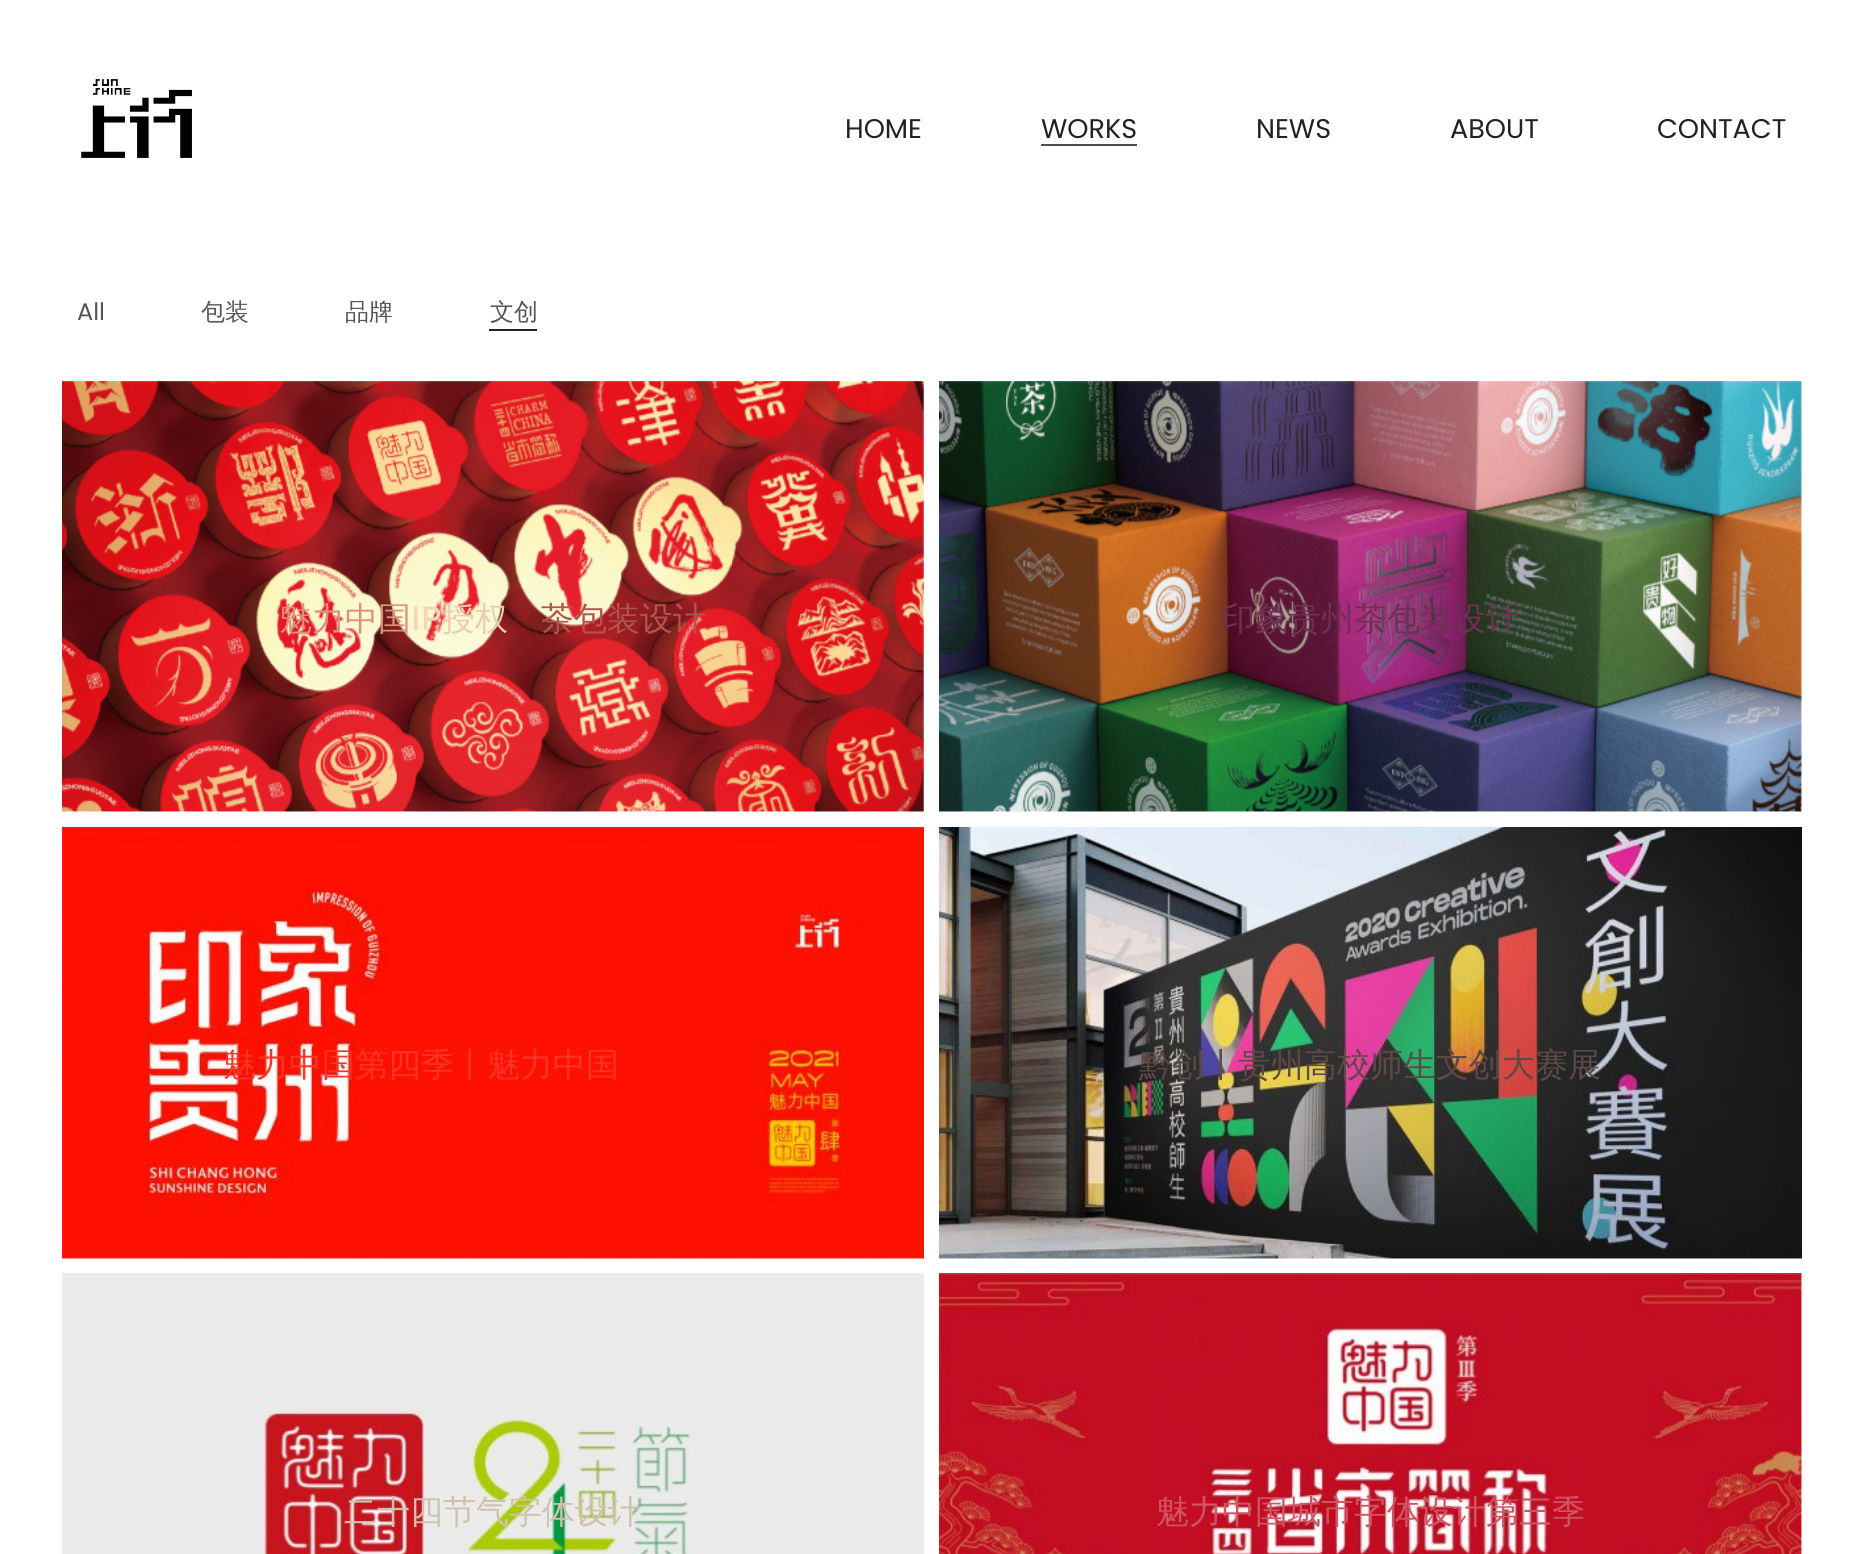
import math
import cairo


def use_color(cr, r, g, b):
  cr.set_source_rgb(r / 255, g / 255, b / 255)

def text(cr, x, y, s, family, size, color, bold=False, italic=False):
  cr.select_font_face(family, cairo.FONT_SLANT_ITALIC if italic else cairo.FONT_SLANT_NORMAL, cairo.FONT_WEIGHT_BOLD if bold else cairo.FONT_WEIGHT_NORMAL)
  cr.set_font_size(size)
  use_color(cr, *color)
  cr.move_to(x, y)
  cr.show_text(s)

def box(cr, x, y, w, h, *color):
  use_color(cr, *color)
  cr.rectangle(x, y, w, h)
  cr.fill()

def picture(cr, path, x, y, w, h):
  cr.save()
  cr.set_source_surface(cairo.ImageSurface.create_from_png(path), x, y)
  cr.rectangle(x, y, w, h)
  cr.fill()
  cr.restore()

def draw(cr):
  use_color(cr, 255, 255, 255)
  cr.paint()
  picture(cr, "img_01.png", 81, 79, 111, 79)
  box(cr, 1041, 144, 96, 2, 78, 78, 78)
  box(cr, 489, 329, 48, 2, 34, 34, 34)
  picture(cr, "img_02.png", 62, 381, 862, 431)
  picture(cr, "img_03.png", 939, 381, 863, 431)
  picture(cr, "img_04.png", 62, 827, 862, 432)
  picture(cr, "img_05.png", 939, 827, 863, 432)
  picture(cr, "img_06.png", 62, 1273, 862, 281)
  picture(cr, "img_07.png", 939, 1273, 863, 281)
  text(cr, 845, 138, "HOME", "Poppins", 27, (34, 34, 34))
  text(cr, 1041, 138, "WORKS", "Poppins", 27, (34, 34, 34))
  text(cr, 1256, 138, "NEWS", "Poppins", 27, (34, 34, 34))
  text(cr, 1450, 138, "ABOUT", "Poppins", 27, (34, 34, 34))
  text(cr, 1657, 138, "CONTACT", "Poppins", 27, (34, 34, 34))
  text(cr, 77, 320, "All", "Poppins", 24, (85, 85, 85))
  text(cr, 201, 320, "包装", "WenQuanYi Zen Hei Medium", 24, (85, 85, 85))
  text(cr, 345, 320, "品牌", "WenQuanYi Zen Hei Medium", 24, (85, 85, 85))
  text(cr, 490, 320, "文创", "WenQuanYi Zen Hei Medium", 24, (85, 85, 85))
  text(cr, 279, 630, "魅力中国", "WenQuanYi Zen Hei Medium", 33, (220, 145, 126))
  text(cr, 411, 630, "IP", "DIN Medium", 33, (246, 212, 181))
  text(cr, 442, 630, "授权", "WenQuanYi Zen Hei Medium", 33, (235, 205, 177))
  text(cr, 541, 630, "茶包装设计", "WenQuanYi Zen Hei Medium", 33, (176, 84, 78))
  text(cr, 1222, 630, "印象贵州茶包装设计", "WenQuanYi Zen Hei Medium", 33, (112, 48, 83))
  text(cr, 223, 1076, "魅力中国第四季丨魅力中国", "WenQuanYi Zen Hei Medium", 33, (252, 51, 37))
  text(cr, 1139, 1076, "黔创丨贵州高校师生文创大赛展", "WenQuanYi Zen Hei Medium", 33, (93, 73, 69))
  text(cr, 344, 1523, "二十四节气字体设计", "WenQuanYi Zen Hei Medium", 33, (207, 194, 173))
  text(cr, 1156, 1523, "魅力中国城市字体设计第三季", "WenQuanYi Zen Hei Medium", 33, (208, 85, 100))


surface = cairo.ImageSurface(cairo.FORMAT_RGB24, 1862, 1554)
cr = cairo.Context(surface)
options = cairo.FontOptions()
options.set_hint_metrics(cairo.HINT_METRICS_OFF)
options.set_hint_style(cairo.HINT_STYLE_NONE)
cr.set_font_options(options)
cr.set_miter_limit(4)
draw(cr)
surface.write_to_png("out.png")
